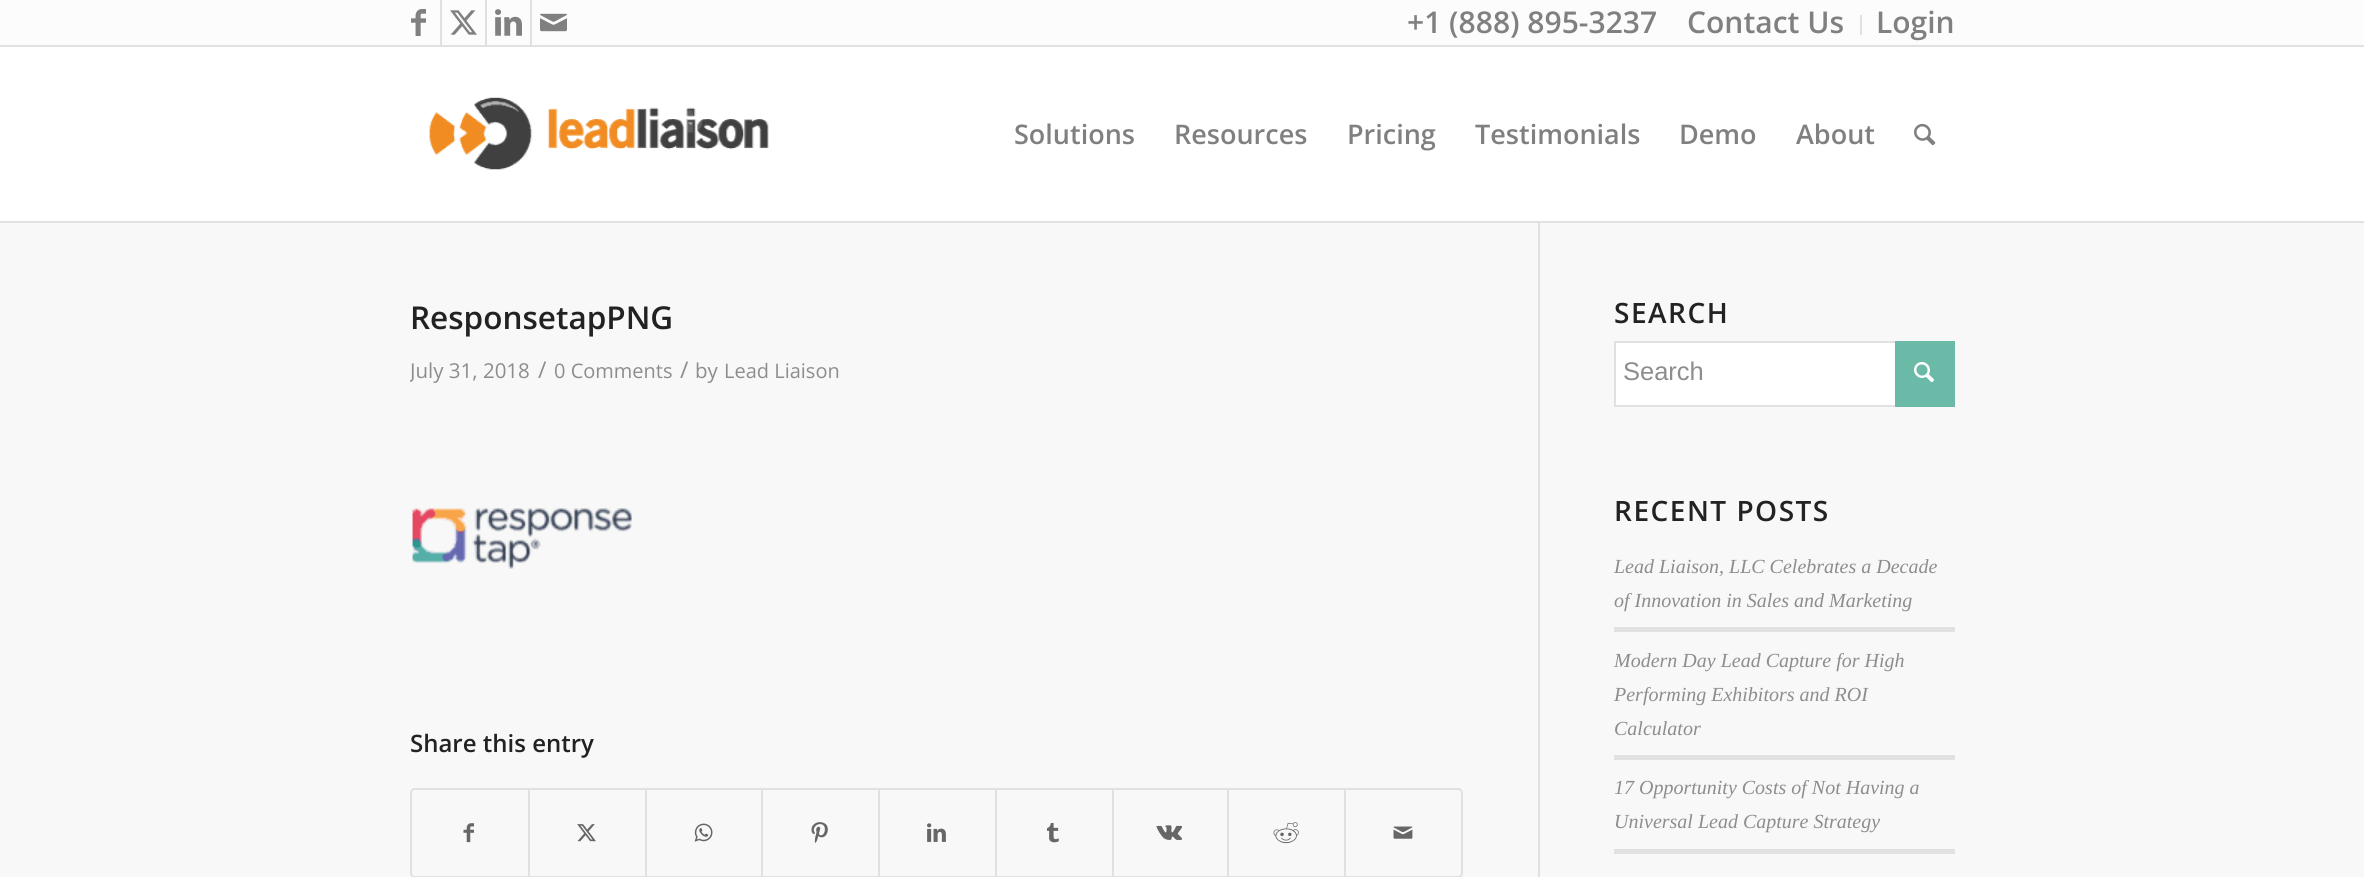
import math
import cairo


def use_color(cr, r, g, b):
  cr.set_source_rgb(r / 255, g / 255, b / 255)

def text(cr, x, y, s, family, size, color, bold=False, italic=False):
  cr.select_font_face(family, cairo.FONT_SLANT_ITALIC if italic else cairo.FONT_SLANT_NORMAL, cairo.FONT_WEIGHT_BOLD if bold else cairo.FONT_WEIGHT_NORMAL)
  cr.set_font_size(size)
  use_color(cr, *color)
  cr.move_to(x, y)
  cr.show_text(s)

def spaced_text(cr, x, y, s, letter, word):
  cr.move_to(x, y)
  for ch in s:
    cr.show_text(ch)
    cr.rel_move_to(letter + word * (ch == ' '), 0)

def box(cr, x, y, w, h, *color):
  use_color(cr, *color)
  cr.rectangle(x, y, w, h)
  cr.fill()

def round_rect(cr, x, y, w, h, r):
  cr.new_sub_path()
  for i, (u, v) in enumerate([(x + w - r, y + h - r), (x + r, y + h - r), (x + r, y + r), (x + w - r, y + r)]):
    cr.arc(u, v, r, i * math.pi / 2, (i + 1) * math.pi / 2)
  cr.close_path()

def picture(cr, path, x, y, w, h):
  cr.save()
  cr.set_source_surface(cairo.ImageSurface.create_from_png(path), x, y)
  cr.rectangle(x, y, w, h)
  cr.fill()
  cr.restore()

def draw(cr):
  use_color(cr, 255, 255, 255)
  cr.paint()
  box(cr, 0, 0, 2364, 45, 252, 252, 252)
  box(cr, 0, 45, 2364, 2, 225, 225, 225)
  box(cr, 440, 0, 2, 45, 225, 225, 225)
  picture(cr, "img_01.png", 411, 9, 15, 27)
  box(cr, 485, 0, 2, 45, 225, 225, 225)
  picture(cr, "img_02.png", 450, 10, 27, 25)
  box(cr, 530, 0, 2, 45, 225, 225, 225)
  picture(cr, "img_03.png", 495, 9, 27, 27)
  picture(cr, "img_04.png", 540, 13, 27, 19)
  box(cr, 1860, 15, 2, 20, 225, 225, 225)
  box(cr, 0, 223, 2364, 654, 248, 248, 248)
  box(cr, 1538, 222, 2, 655, 225, 225, 225)
  box(cr, 0, 221, 2364, 2, 225, 225, 225)
  picture(cr, "img_05.png", 429, 97, 340, 73)
  picture(cr, "img_06.png", 1914, 123, 22, 23)
  picture(cr, "img_07.png", 412, 508, 220, 61)
  round_rect(cr, 411, 789, 1051, 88, 4)
  cr.stroke()
  picture(cr, "img_08.png", 463, 823, 11, 20)
  box(cr, 528, 789, 2, 87, 225, 225, 225)
  picture(cr, "img_09.png", 577, 824, 19, 18)
  box(cr, 645, 789, 2, 87, 225, 225, 225)
  picture(cr, "img_10.png", 694, 823, 19, 19)
  box(cr, 761, 789, 2, 87, 225, 225, 225)
  picture(cr, "img_11.png", 811, 822, 17, 21)
  box(cr, 878, 789, 2, 87, 225, 225, 225)
  picture(cr, "img_12.png", 927, 823, 19, 19)
  box(cr, 995, 789, 2, 87, 225, 225, 225)
  picture(cr, "img_13.png", 1047, 823, 12, 20)
  box(cr, 1112, 789, 2, 87, 225, 225, 225)
  picture(cr, "img_14.png", 1156, 825, 27, 15)
  box(cr, 1227, 789, 2, 87, 225, 225, 225)
  picture(cr, "img_15.png", 1273, 822, 26, 22)
  box(cr, 1344, 789, 2, 87, 225, 225, 225)
  picture(cr, "img_16.png", 1393, 826, 20, 13)
  box(cr, 1616, 343, 279, 62, 255, 255, 255)
  cr.rectangle(1615, 342, 339, 64)
  use_color(cr, 225, 225, 225)
  cr.stroke()
  box(cr, 1895, 341, 60, 66, 107, 186, 168)
  picture(cr, "img_17.png", 1914, 362, 21, 21)
  box(cr, 1614, 627, 341, 5, 225, 225, 225)
  box(cr, 1614, 755, 341, 5, 225, 225, 225)
  box(cr, 1614, 849, 341, 5, 225, 225, 225)
  text(cr, 1407, 33, "+1 (888) 895-3237", "Open Sans SemiBold", 30, (128, 128, 128))
  text(cr, 1687, 33, "Contact Us", "Open Sans SemiBold", 30, (128, 128, 128))
  text(cr, 1876, 33, "Login", "Open Sans SemiBold", 30, (128, 128, 128))
  text(cr, 1014, 144, "Solutions", "Open Sans SemiBold", 27, (128, 128, 128))
  text(cr, 1174, 144, "Resources", "Open Sans SemiBold", 27, (128, 128, 128))
  text(cr, 1347, 144, "Pricing", "Open Sans SemiBold", 27, (128, 128, 128))
  text(cr, 1475, 144, "Testimonials", "Open Sans SemiBold", 27, (128, 128, 128))
  text(cr, 1679, 144, "Demo", "Open Sans SemiBold", 27, (128, 128, 128))
  text(cr, 1796, 144, "About", "Open Sans SemiBold", 27, (128, 128, 128))
  text(cr, 410, 329, "ResponsetapPNG", "Open Sans SemiBold", 31.5, (34, 34, 34))
  cr.save()
  cr.rectangle(410, 297, 1128, 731)
  cr.clip()
  text(cr, 410, 378, "July 31, 2018", "Open Sans", 20.5, (141, 141, 141))
  cr.restore()
  text(cr, 538, 378, "/", "Open Sans", 23, (141, 141, 141))
  text(cr, 554, 378, "0 Comments", "Open Sans", 20, (141, 141, 141))
  text(cr, 680, 378, "/", "Open Sans", 23, (141, 141, 141))
  text(cr, 695, 378, "by", "Open Sans", 20.5, (141, 141, 141))
  text(cr, 724, 378, "Lead Liaison", "Open Sans", 20, (141, 141, 141))
  text(cr, 410, 752, "Share this entry", "Open Sans SemiBold", 24, (34, 34, 34))
  cr.set_font_size(28)
  spaced_text(cr, 1614, 323, "SEARCH", 1.5, 0)
  text(cr, 1623, 380, "Search", "Liberation Sans", 25.5, (141, 141, 141))
  cr.select_font_face("Open Sans SemiBold")
  cr.set_font_size(28)
  use_color(cr, 34, 34, 34)
  spaced_text(cr, 1614, 521, "RECENT POSTS", 1.5, 0)
  text(cr, 1614, 573, "Lead Liaison, LLC Celebrates a Decade", "Liberation Serif", 20, (141, 141, 141), italic=True)
  text(cr, 1614, 607, "of Innovation in Sales and Marketing", "Liberation Serif", 20, (141, 141, 141), italic=True)
  text(cr, 1614, 667, "Modern Day Lead Capture for High", "Liberation Serif", 20, (141, 141, 141), italic=True)
  text(cr, 1614, 701, "Performing Exhibitors and ROI", "Liberation Serif", 20, (141, 141, 141), italic=True)
  text(cr, 1614, 735, "Calculator", "Liberation Serif", 20, (141, 141, 141), italic=True)
  text(cr, 1614, 794, "17 Opportunity Costs of Not Having a", "Liberation Serif", 20, (141, 141, 141), italic=True)
  text(cr, 1614, 828, "Universal Lead Capture Strategy", "Liberation Serif", 20, (141, 141, 141), italic=True)


surface = cairo.ImageSurface(cairo.FORMAT_RGB24, 2364, 877)
cr = cairo.Context(surface)
options = cairo.FontOptions()
options.set_hint_metrics(cairo.HINT_METRICS_OFF)
options.set_hint_style(cairo.HINT_STYLE_NONE)
cr.set_font_options(options)
cr.set_miter_limit(4)
draw(cr)
surface.write_to_png("out.png")
